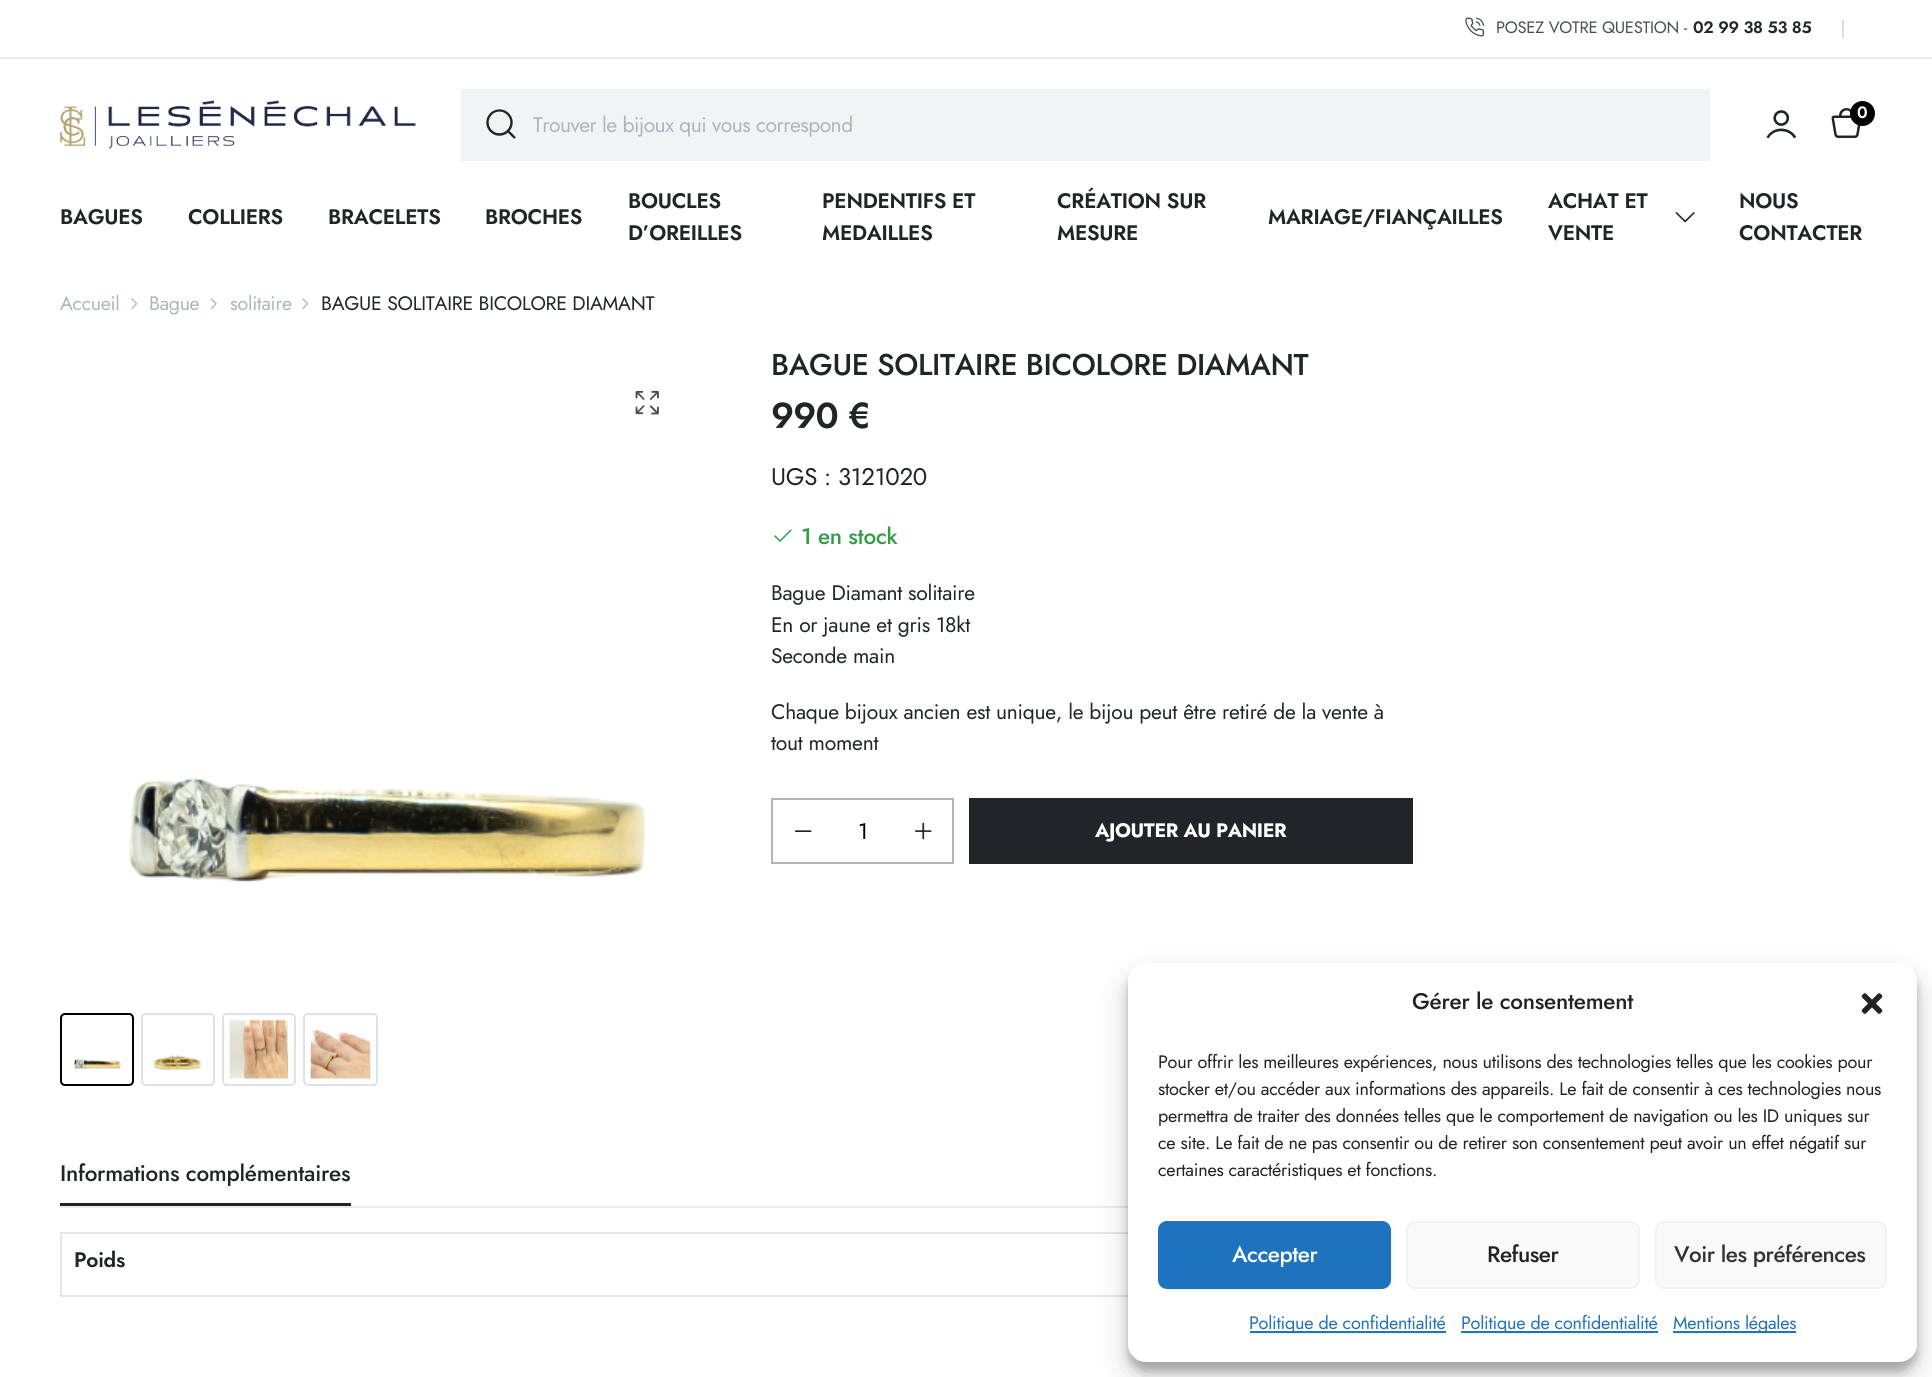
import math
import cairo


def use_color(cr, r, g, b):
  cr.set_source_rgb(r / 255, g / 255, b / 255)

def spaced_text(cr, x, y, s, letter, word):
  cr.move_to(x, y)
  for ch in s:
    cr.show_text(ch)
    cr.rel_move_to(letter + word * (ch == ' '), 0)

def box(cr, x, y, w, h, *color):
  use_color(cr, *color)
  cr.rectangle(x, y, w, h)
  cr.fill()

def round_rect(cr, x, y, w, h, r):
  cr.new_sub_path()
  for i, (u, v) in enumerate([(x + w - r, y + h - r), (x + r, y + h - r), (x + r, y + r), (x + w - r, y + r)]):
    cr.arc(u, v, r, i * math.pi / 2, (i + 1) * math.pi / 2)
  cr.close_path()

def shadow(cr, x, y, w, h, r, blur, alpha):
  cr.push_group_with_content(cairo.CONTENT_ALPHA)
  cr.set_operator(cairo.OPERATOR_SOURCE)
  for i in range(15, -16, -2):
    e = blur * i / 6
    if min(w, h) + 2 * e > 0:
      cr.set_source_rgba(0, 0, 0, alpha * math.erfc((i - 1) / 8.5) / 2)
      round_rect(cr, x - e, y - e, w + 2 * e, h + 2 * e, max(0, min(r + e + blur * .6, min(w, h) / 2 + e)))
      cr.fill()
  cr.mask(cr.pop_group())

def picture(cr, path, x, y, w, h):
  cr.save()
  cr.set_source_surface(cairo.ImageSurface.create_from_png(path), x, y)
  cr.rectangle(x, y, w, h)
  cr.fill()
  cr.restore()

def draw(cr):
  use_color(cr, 255, 255, 255)
  cr.paint()
  box(cr, 0, 57, 1932, 2, 233, 236, 239)
  picture(cr, "img_01.png", 1465, 17, 20, 20)
  box(cr, 1842, 20, 2, 18, 222, 222, 223)
  picture(cr, "img_02.png", 60, 100, 356, 49)
  picture(cr, "img_03.png", 1766, 110, 31, 29)
  picture(cr, "img_04.png", 1831, 108, 30, 30)
  use_color(cr, 0, 0, 0)
  cr.arc(1862.5, 113.5, 12.5, 0, 2 * math.pi)
  cr.fill()
  box(cr, 461, 89, 1249, 72, 241, 243, 245)
  picture(cr, "img_05.png", 486, 109, 30, 30)
  picture(cr, "img_06.png", 1675, 212, 20, 11)
  picture(cr, "img_07.png", 131, 298, 7, 12)
  picture(cr, "img_08.png", 210, 298, 7, 12)
  picture(cr, "img_07.png", 302, 298, 7, 12)
  picture(cr, "img_09.png", 635, 390, 24, 25)
  picture(cr, "img_10.png", 128, 778, 518, 104)
  round_rect(cr, 61, 1014, 72, 71, 4)
  use_color(cr, 0, 0, 0)
  cr.stroke()
  picture(cr, "img_11.png", 73, 1059, 48, 10)
  round_rect(cr, 142, 1014, 72, 71, 4)
  use_color(cr, 223, 226, 230)
  cr.stroke()
  picture(cr, "img_12.png", 153, 1055, 48, 16)
  round_rect(cr, 223, 1014, 72, 71, 4)
  cr.stroke()
  picture(cr, "img_13.png", 229, 1019, 59, 60)
  round_rect(cr, 304, 1014, 73, 71, 4)
  cr.stroke()
  picture(cr, "img_14.png", 310, 1029, 61, 50)
  picture(cr, "img_15.png", 774, 529, 18, 13)
  cr.rectangle(772, 799, 181, 64)
  use_color(cr, 173, 181, 189)
  cr.stroke()
  picture(cr, "img_16.png", 795, 830, 17, 2)
  picture(cr, "img_17.png", 915, 822, 17, 18)
  box(cr, 969, 798, 444, 66, 33, 37, 41)
  box(cr, 60, 1206, 1068, 2, 233, 236, 239)
  box(cr, 60, 1203, 291, 3, 33, 37, 41)
  box(cr, 60, 1232, 1068, 2, 229, 231, 235)
  box(cr, 60, 1295, 1068, 2, 229, 231, 235)
  box(cr, 60, 1232, 2, 64, 229, 231, 235)
  use_color(cr, 0, 0, 0)
  shadow(cr, 1128, 972, 789, 399, 18, 4.5, 0.23)
  shadow(cr, 1128, 978, 789, 399, 18, 15, 0.19)
  use_color(cr, 255, 255, 255)
  round_rect(cr, 1128, 963, 789, 399, 18)
  cr.fill()
  picture(cr, "img_18.png", 1861, 993, 22, 21)
  use_color(cr, 30, 115, 190)
  round_rect(cr, 1159, 1222, 231, 66, 8)
  cr.fill_preserve()
  cr.stroke()
  use_color(cr, 249, 249, 249)
  round_rect(cr, 1407, 1222, 232, 66, 8)
  cr.fill_preserve()
  use_color(cr, 242, 242, 242)
  cr.stroke()
  use_color(cr, 249, 249, 249)
  round_rect(cr, 1656, 1222, 230, 66, 8)
  cr.fill_preserve()
  use_color(cr, 242, 242, 242)
  cr.stroke()
  box(cr, 1250, 1331, 196, 2, 30, 115, 190)
  box(cr, 1461, 1331, 197, 2, 30, 115, 190)
  box(cr, 1673, 1331, 123, 2, 30, 115, 190)
  cr.select_font_face("Jost")
  cr.set_font_size(16.5)
  use_color(cr, 73, 80, 87)
  spaced_text(cr, 1496, 33, "POSEZ VOTRE QUESTION -", -0.25, 0)
  cr.select_font_face("Jost SemiBold")
  use_color(cr, 33, 37, 41)
  spaced_text(cr, 1693, 33, "02 99 38 53 85", -0.25, 0)
  use_color(cr, 255, 255, 255)
  spaced_text(cr, 1857, 118, "0", -0.25, 0)
  cr.select_font_face("Jost")
  cr.set_font_size(21)
  use_color(cr, 173, 181, 189)
  spaced_text(cr, 533, 132, "Trouver le bijoux qui vous correspond", -0.5, 0)
  cr.select_font_face("Jost SemiBold")
  use_color(cr, 33, 37, 41)
  spaced_text(cr, 60, 224, "BAGUES", -0.25, 0)
  spaced_text(cr, 188, 224, "COLLIERS", -0.25, 0)
  spaced_text(cr, 328, 224, "BRACELETS", -0.25, 0)
  spaced_text(cr, 485, 224, "BROCHES", -0.25, 0)
  spaced_text(cr, 628, 208, "BOUCLES", -0.25, 0)
  spaced_text(cr, 628, 240, "D’OREILLES", -0.25, 0)
  spaced_text(cr, 822, 208, "PENDENTIFS ET", -0.25, 0)
  spaced_text(cr, 822, 240, "MEDAILLES", -0.25, 0)
  spaced_text(cr, 1057, 208, "CRÉATION SUR", -0.25, 0)
  spaced_text(cr, 1057, 240, "MESURE", -0.25, 0)
  spaced_text(cr, 1268, 224, "MARIAGE/FIANÇAILLES", -0.25, 0)
  spaced_text(cr, 1548, 208, "ACHAT ET", -0.25, 0)
  spaced_text(cr, 1548, 240, "VENTE", -0.25, 0)
  spaced_text(cr, 1739, 208, "NOUS", -0.25, 0)
  spaced_text(cr, 1739, 240, "CONTACTER", -0.25, 0)
  cr.select_font_face("Jost")
  cr.set_font_size(19.5)
  use_color(cr, 173, 181, 189)
  spaced_text(cr, 60, 310, "Accueil", -0.25, 0)
  spaced_text(cr, 149, 310, "Bague", -0.25, 0)
  spaced_text(cr, 230, 310, "solitaire", -0.25, 0)
  use_color(cr, 33, 37, 41)
  spaced_text(cr, 321, 310, "BAGUE SOLITAIRE BICOLORE DIAMANT", -0.25, 0)
  cr.select_font_face("Jost Medium")
  cr.set_font_size(30)
  spaced_text(cr, 771, 375, "BAGUE SOLITAIRE BICOLORE DIAMANT", -0.35, 0)
  cr.select_font_face("Jost SemiBold")
  cr.set_font_size(36)
  spaced_text(cr, 771, 428, "990 €", -0.75, 0)
  cr.select_font_face("Jost")
  cr.set_font_size(24)
  spaced_text(cr, 771, 485, "UGS : 3121020", -0.25, 0)
  cr.select_font_face("Jost Medium")
  cr.set_font_size(22.5)
  use_color(cr, 47, 158, 68)
  spaced_text(cr, 801, 544, "1 en stock", -0.25, 0)
  cr.select_font_face("Jost")
  cr.set_font_size(21)
  use_color(cr, 33, 37, 41)
  spaced_text(cr, 771, 600, "Bague Diamant solitaire", -0.25, 0)
  spaced_text(cr, 771, 632, "En or jaune et gris 18kt", -0.25, 0)
  spaced_text(cr, 771, 663, "Seconde main", -0.25, 0)
  spaced_text(cr, 771, 719, "Chaque bijoux ancien est unique, le bijou peut être retiré de la vente à", -0.25, 0)
  spaced_text(cr, 771, 750, "tout moment", -0.25, 0)
  cr.set_font_size(22.5)
  use_color(cr, 0, 0, 0)
  spaced_text(cr, 858, 839, "1", -0.5, 0)
  cr.select_font_face("Jost", cairo.FONT_SLANT_NORMAL, cairo.FONT_WEIGHT_BOLD)
  cr.set_font_size(19.5)
  use_color(cr, 255, 255, 255)
  spaced_text(cr, 1095, 837, "AJOUTER AU PANIER", -0.4, 0)
  cr.select_font_face("Jost Medium")
  cr.set_font_size(22.5)
  use_color(cr, 33, 37, 41)
  spaced_text(cr, 60, 1181, "Informations complémentaires", -0.25, 0)
  cr.select_font_face("Jost SemiBold")
  cr.set_font_size(21)
  spaced_text(cr, 74, 1267, "Poids", -0.25, 0)
  cr.select_font_face("Jost Medium")
  cr.set_font_size(22.5)
  use_color(cr, 34, 34, 34)
  spaced_text(cr, 1412, 1009, "Gérer le consentement", -0.25, 0)
  cr.select_font_face("Jost")
  cr.set_font_size(18)
  spaced_text(cr, 1158, 1068, "Pour offrir les meilleures expériences, nous utilisons des technologies telles que les cookies pour", -0.25, 0)
  spaced_text(cr, 1158, 1095, "stocker et/ou accéder aux informations des appareils. Le fait de consentir à ces technologies nous", -0.25, 0)
  spaced_text(cr, 1158, 1122, "permettra de traiter des données telles que le comportement de navigation ou les ID uniques sur", -0.25, 0)
  spaced_text(cr, 1158, 1149, "ce site. Le fait de ne pas consentir ou de retirer son consentement peut avoir un effet négatif sur", -0.25, 0)
  spaced_text(cr, 1158, 1176, "certaines caractéristiques et fonctions.", -0.25, 0)
  cr.select_font_face("Jost Medium")
  cr.set_font_size(22.5)
  use_color(cr, 255, 255, 255)
  spaced_text(cr, 1232, 1262, "Accepter", -0.5, 0)
  use_color(cr, 34, 34, 34)
  spaced_text(cr, 1487, 1262, "Refuser", -0.5, 0)
  use_color(cr, 51, 51, 51)
  spaced_text(cr, 1674, 1262, "Voir les préférences", -0.5, 0)
  cr.select_font_face("Jost")
  cr.set_font_size(18)
  use_color(cr, 30, 115, 190)
  spaced_text(cr, 1249, 1329, "Politique de confidentialité", -0.25, 0)
  spaced_text(cr, 1461, 1329, "Politique de confidentialité", -0.25, 0)
  spaced_text(cr, 1673, 1329, "Mentions légales", -0.25, 0)


surface = cairo.ImageSurface(cairo.FORMAT_RGB24, 1932, 1377)
cr = cairo.Context(surface)
options = cairo.FontOptions()
options.set_hint_metrics(cairo.HINT_METRICS_OFF)
options.set_hint_style(cairo.HINT_STYLE_NONE)
cr.set_font_options(options)
cr.set_miter_limit(4)
draw(cr)
surface.write_to_png("out.png")
